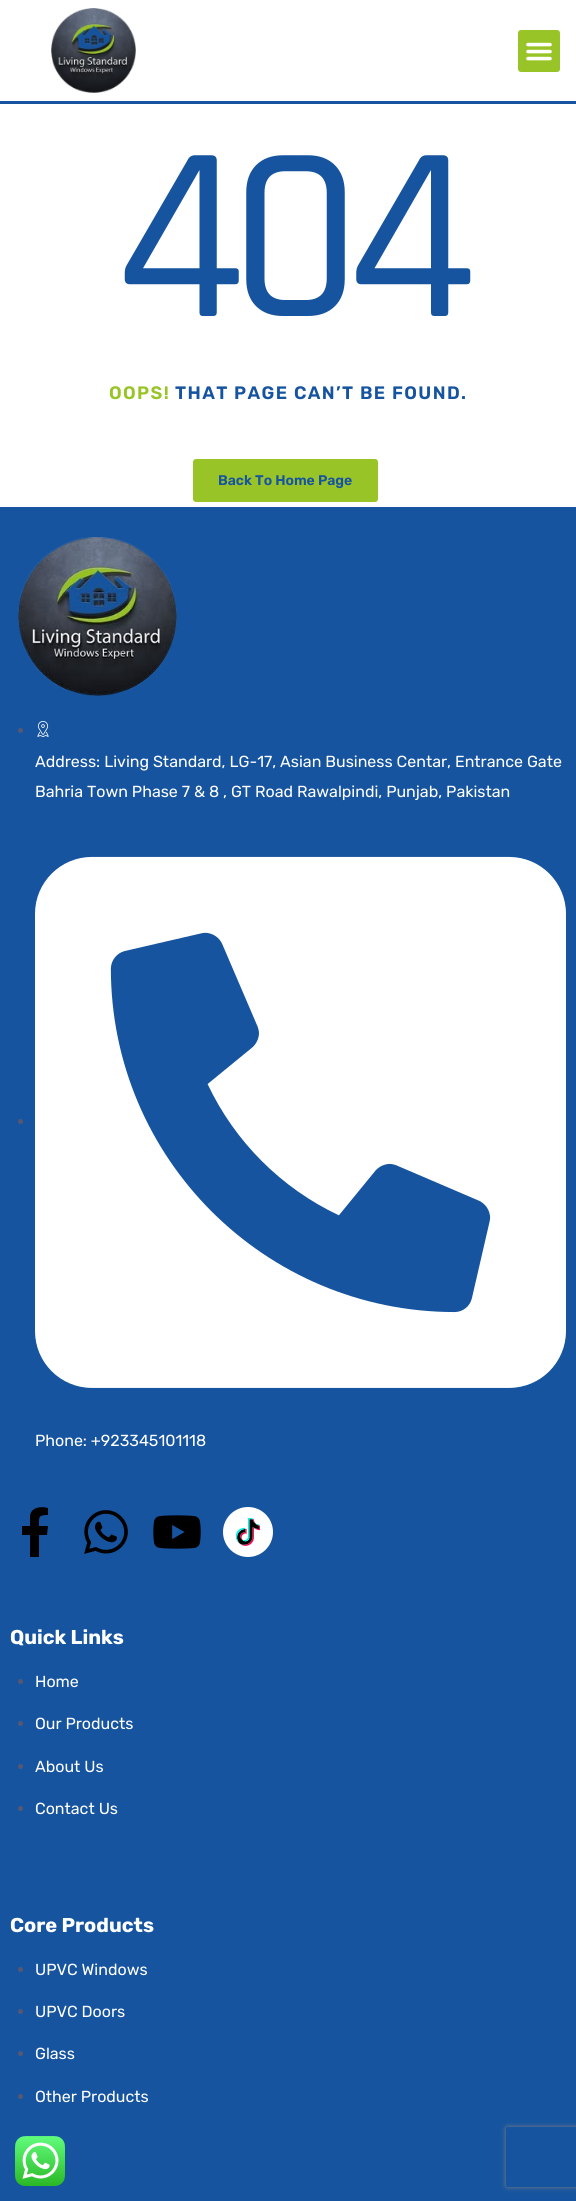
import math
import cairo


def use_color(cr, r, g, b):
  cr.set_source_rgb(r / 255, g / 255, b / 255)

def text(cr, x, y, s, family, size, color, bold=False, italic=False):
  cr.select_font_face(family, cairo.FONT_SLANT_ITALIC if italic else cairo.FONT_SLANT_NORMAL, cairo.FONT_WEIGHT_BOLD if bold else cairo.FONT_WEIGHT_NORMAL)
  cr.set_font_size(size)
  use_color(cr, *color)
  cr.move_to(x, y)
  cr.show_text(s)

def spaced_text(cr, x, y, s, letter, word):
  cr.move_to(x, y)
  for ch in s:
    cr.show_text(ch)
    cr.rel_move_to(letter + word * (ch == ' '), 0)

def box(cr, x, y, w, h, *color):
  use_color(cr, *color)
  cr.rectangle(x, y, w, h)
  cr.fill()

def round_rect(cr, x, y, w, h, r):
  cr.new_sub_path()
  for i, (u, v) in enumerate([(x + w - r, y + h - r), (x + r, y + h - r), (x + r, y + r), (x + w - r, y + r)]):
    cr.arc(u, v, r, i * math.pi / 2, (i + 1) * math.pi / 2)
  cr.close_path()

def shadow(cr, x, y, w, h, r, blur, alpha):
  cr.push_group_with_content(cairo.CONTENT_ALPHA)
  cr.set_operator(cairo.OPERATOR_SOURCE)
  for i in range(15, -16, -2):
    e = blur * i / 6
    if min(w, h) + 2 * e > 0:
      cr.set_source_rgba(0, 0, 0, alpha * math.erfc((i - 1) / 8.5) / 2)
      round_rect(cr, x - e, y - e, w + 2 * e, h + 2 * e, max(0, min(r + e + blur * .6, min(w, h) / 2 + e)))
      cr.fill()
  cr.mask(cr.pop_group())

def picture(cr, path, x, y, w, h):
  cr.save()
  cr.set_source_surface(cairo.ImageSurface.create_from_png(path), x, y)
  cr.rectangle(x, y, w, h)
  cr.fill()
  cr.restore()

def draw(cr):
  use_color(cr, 255, 255, 255)
  cr.paint()
  box(cr, 0, 101, 576, 3, 22, 84, 159)
  picture(cr, "img_01.png", 51, 8, 85, 85)
  use_color(cr, 152, 196, 40)
  round_rect(cr, 518, 30, 42, 42, 3)
  cr.fill()
  picture(cr, "img_02.png", 526, 42, 26, 19)
  round_rect(cr, 193, 459, 185, 43, 3)
  cr.fill()
  box(cr, 0, 507, 576, 1694, 22, 84, 159)
  picture(cr, "img_03.png", 18, 537, 159, 159)
  use_color(cr, 86, 88, 114)
  cr.arc(20.5, 730.5, 2.5, 0, 2 * math.pi)
  cr.fill()
  picture(cr, "img_04.png", 37, 721, 12, 16)
  cr.arc(20.5, 1121.5, 2.5, 0, 2 * math.pi)
  cr.fill()
  picture(cr, "img_05.png", 35, 856, 531, 532)
  use_color(cr, 0, 0, 0)
  cr.new_path()
  cr.move_to(47, 1535)
  cr.line_to(48, 1526)
  cr.line_to(39, 1526)
  cr.curve_to(39, 1517, 38, 1515, 48, 1515)
  cr.line_to(48, 1508)
  cr.curve_to(41, 1506, 31, 1507, 30, 1516)
  cr.line_to(30, 1526)
  cr.line_to(22, 1526)
  cr.line_to(22, 1535)
  cr.line_to(30, 1535)
  cr.line_to(30, 1557)
  cr.line_to(39, 1557)
  cr.line_to(39, 1535)
  cr.close_path()
  cr.fill()
  picture(cr, "img_06.png", 84, 1510, 44, 44)
  picture(cr, "img_07.png", 153, 1515, 48, 34)
  picture(cr, "img_08.png", 223, 1507, 50, 50)
  use_color(cr, 86, 88, 114)
  cr.arc(20.5, 1681.5, 2.5, 0, 2 * math.pi)
  cr.fill()
  cr.arc(20.5, 1723.5, 2.5, 0, 2 * math.pi)
  cr.fill()
  cr.arc(20.5, 1766.5, 2.5, 0, 2 * math.pi)
  cr.fill()
  cr.arc(20.5, 1808.5, 2.5, 0, 2 * math.pi)
  cr.fill()
  cr.arc(20.5, 1969.5, 2.5, 0, 2 * math.pi)
  cr.fill()
  cr.arc(20.5, 2011.5, 2.5, 0, 2 * math.pi)
  cr.fill()
  cr.arc(20.5, 2053.5, 2.5, 0, 2 * math.pi)
  cr.fill()
  cr.arc(20.5, 2096.5, 2.5, 0, 2 * math.pi)
  cr.fill()
  picture(cr, "img_09.png", 15, 2136, 50, 50)
  cr.save()
  cr.set_fill_rule(cairo.FILL_RULE_EVEN_ODD)
  cr.new_path()
  cr.move_to(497, 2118)
  cr.line_to(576, 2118)
  cr.line_to(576, 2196)
  cr.line_to(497, 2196)
  cr.close_path()
  cr.move_to(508, 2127)
  cr.line_to(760, 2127)
  cr.curve_to(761, 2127, 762, 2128, 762, 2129)
  cr.line_to(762, 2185)
  cr.curve_to(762, 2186, 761, 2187, 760, 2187)
  cr.line_to(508, 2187)
  cr.curve_to(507, 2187, 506, 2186, 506, 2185)
  cr.line_to(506, 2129)
  cr.curve_to(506, 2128, 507, 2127, 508, 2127)
  cr.close_path()
  cr.clip()
  use_color(cr, 128, 128, 128)
  shadow(cr, 506, 2127, 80, 60, 2, 2.5, 1)
  cr.restore()
  cr.select_font_face("Rajdhani Medium")
  cr.set_font_size(250)
  use_color(cr, 22, 84, 159)
  spaced_text(cr, 114, 316, "404", -15, 0)
  cr.select_font_face("Rubik SemiBold")
  cr.set_font_size(18)
  use_color(cr, 152, 196, 40)
  spaced_text(cr, 109, 399, "OOPS!", 1.4, 0)
  use_color(cr, 22, 84, 159)
  spaced_text(cr, 175, 399, "THAT PAGE CAN’T BE FOUND.", 1.4, 0)
  text(cr, 218, 485, "Back To Home Page", "Rubik SemiBold", 14, (22, 84, 159))
  text(cr, 35, 767, "Address: Living Standard, LG-17, Asian Business Centar, Entrance Gate", "Rubik", 16, (255, 255, 255))
  text(cr, 35, 797, "Bahria Town Phase 7 & 8 , GT Road Rawalpindi, Punjab, Pakistan", "Rubik", 16, (255, 255, 255))
  text(cr, 35, 1446, "Phone: +923345101118", "Rubik", 16, (255, 255, 255))
  text(cr, 10, 1644, "Quick Links", "Rubik", 20, (255, 255, 255), bold=True)
  text(cr, 35, 1687, "Home", "Rubik", 16, (255, 255, 255))
  text(cr, 35, 1729, "Our Products", "Rubik", 16, (255, 255, 255))
  text(cr, 35, 1772, "About Us", "Rubik", 16, (255, 255, 255))
  text(cr, 35, 1814, "Contact Us", "Rubik", 16, (255, 255, 255))
  text(cr, 10, 1932, "Core Products", "Rubik", 20, (255, 255, 255), bold=True)
  text(cr, 35, 1975, "UPVC Windows", "Rubik", 16, (255, 255, 255))
  text(cr, 35, 2017, "UPVC Doors", "Rubik", 16, (255, 255, 255))
  text(cr, 35, 2059, "Glass", "Rubik", 16, (255, 255, 255))
  text(cr, 35, 2102, "Other Products", "Rubik", 16, (255, 255, 255))


surface = cairo.ImageSurface(cairo.FORMAT_RGB24, 576, 2201)
cr = cairo.Context(surface)
options = cairo.FontOptions()
options.set_hint_metrics(cairo.HINT_METRICS_OFF)
options.set_hint_style(cairo.HINT_STYLE_NONE)
cr.set_font_options(options)
cr.set_miter_limit(4)
draw(cr)
surface.write_to_png("out.png")
